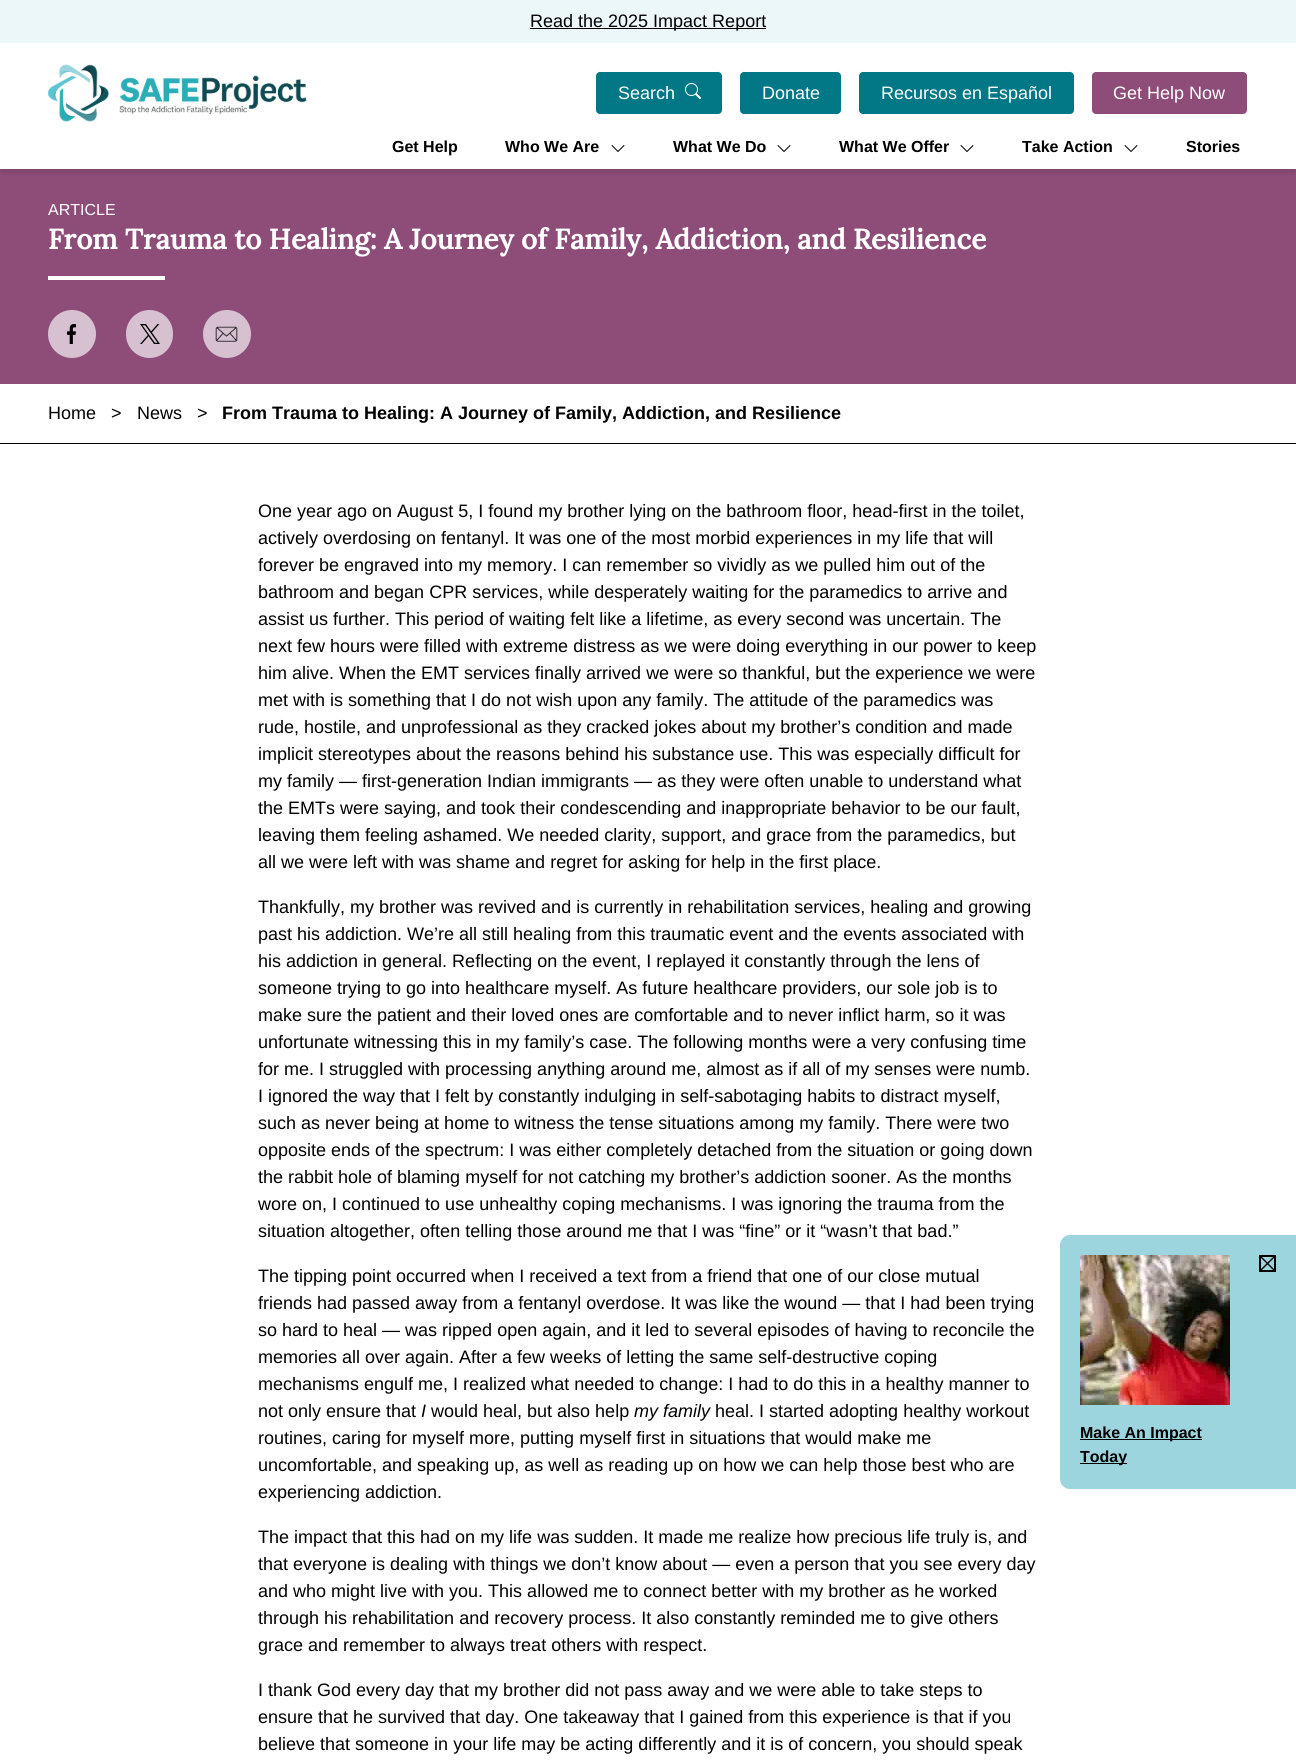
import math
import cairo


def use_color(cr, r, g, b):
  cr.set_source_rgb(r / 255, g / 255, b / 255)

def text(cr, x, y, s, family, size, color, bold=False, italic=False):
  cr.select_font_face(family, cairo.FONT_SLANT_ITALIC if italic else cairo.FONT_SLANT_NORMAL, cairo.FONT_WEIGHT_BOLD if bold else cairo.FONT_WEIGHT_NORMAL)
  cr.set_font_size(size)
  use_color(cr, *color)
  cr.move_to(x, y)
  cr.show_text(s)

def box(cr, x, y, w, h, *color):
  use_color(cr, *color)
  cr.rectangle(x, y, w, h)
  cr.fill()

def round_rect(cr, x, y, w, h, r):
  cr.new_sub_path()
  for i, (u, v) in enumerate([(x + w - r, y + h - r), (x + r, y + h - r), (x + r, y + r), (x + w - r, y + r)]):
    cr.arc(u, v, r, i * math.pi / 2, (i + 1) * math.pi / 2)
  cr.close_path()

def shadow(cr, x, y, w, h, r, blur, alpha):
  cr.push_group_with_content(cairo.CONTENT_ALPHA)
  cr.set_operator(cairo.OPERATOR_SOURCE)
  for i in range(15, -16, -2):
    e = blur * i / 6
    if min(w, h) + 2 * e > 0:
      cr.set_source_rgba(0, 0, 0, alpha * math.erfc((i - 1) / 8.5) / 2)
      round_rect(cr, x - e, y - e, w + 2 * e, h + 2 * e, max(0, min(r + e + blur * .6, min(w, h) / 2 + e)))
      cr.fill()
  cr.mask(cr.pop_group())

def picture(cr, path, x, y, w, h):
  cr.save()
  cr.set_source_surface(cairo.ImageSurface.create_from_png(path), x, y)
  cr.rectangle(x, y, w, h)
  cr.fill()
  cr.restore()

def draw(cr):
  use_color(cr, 255, 255, 255)
  cr.paint()
  box(cr, 0, 0, 1296, 43, 235, 247, 248)
  box(cr, 530, 28, 236, 1, 0, 0, 0)
  box(cr, 0, 169, 1296, 215, 142, 77, 121)
  cr.save()
  cr.rectangle(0, 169, 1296, 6)
  cr.clip()
  use_color(cr, 0, 0, 0)
  shadow(cr, 0, 47, 1296, 126, 0, 2, 0.1)
  cr.restore()
  picture(cr, "img_01.png", 48, 64, 259, 58)
  use_color(cr, 2, 119, 133)
  round_rect(cr, 595.5, 71.5, 127, 43, 4.5)
  cr.fill_preserve()
  use_color(cr, 255, 255, 255)
  cr.set_line_width(1)
  cr.stroke()
  picture(cr, "img_02.png", 685, 83, 16, 16)
  use_color(cr, 2, 119, 133)
  round_rect(cr, 739.5, 71.5, 102, 43, 4.5)
  cr.fill_preserve()
  use_color(cr, 255, 255, 255)
  cr.stroke()
  use_color(cr, 2, 119, 133)
  round_rect(cr, 858.5, 71.5, 216, 43, 4.5)
  cr.fill_preserve()
  use_color(cr, 255, 255, 255)
  cr.stroke()
  use_color(cr, 142, 77, 121)
  round_rect(cr, 1091.5, 71.5, 156, 43, 4.5)
  cr.fill_preserve()
  use_color(cr, 255, 255, 255)
  cr.stroke()
  picture(cr, "img_03.png", 611, 145, 14, 7)
  picture(cr, "img_03.png", 777, 145, 14, 7)
  picture(cr, "img_03.png", 960, 145, 14, 7)
  picture(cr, "img_03.png", 1124, 145, 14, 7)
  use_color(cr, 156, 213, 222)
  cr.new_path()
  cr.move_to(1070, 1235)
  cr.line_to(1296, 1235)
  cr.line_to(1296, 1489)
  cr.line_to(1070, 1489)
  cr.curve_to(1064.5, 1489, 1060, 1484.5, 1060, 1479)
  cr.line_to(1060, 1245)
  cr.curve_to(1060, 1239.5, 1064.5, 1235, 1070, 1235)
  cr.close_path()
  cr.fill()
  picture(cr, "img_04.png", 1080, 1255, 150, 150)
  picture(cr, "img_05.png", 1261, 1257, 13, 13)
  cr.rectangle(1260, 1256, 15, 15)
  use_color(cr, 0, 0, 0)
  cr.set_line_width(2)
  cr.stroke()
  box(cr, 1080, 1439, 122, 1, 0, 0, 0)
  box(cr, 1080, 1463, 47, 1, 0, 0, 0)
  box(cr, 48, 276, 117, 4, 255, 255, 255)
  use_color(cr, 215, 193, 209)
  cr.arc(72, 334, 24, 0, 2 * math.pi)
  cr.fill()
  picture(cr, "img_06.png", 67, 324, 10, 20)
  round_rect(cr, 126, 310, 47, 48, 23.5)
  cr.fill()
  picture(cr, "img_07.png", 140, 324, 20, 20)
  cr.arc(227, 334, 24, 0, 2 * math.pi)
  cr.fill()
  picture(cr, "img_08.png", 215, 326, 23, 16)
  box(cr, 0, 443, 1296, 1, 0, 0, 0)
  text(cr, 530, 27, "Read the 2025 Impact Report", "Liberation Sans", 18, (0, 0, 0))
  text(cr, 618, 99, "Search", "Liberation Sans", 18, (255, 255, 255))
  text(cr, 762, 99, "Donate", "Liberation Sans", 18, (255, 255, 255))
  text(cr, 881, 99, "Recursos en Español", "Liberation Sans", 18, (255, 255, 255))
  text(cr, 1113, 99, "Get Help Now", "Liberation Sans", 18, (255, 255, 255))
  text(cr, 392, 152, "Get Help", "Liberation Sans", 16, (0, 0, 0), bold=True)
  text(cr, 505, 152, "Who We Are", "Liberation Sans", 16, (0, 0, 0), bold=True)
  text(cr, 673, 152, "What We Do", "Liberation Sans", 16, (0, 0, 0), bold=True)
  text(cr, 839, 152, "What We Offer", "Liberation Sans", 16, (0, 0, 0), bold=True)
  text(cr, 1022, 152, "Take Action", "Liberation Sans", 16, (0, 0, 0), bold=True)
  text(cr, 1186, 152, "Stories", "Liberation Sans", 16, (0, 0, 0), bold=True)
  text(cr, 1080, 1438, "Make An Impact", "Liberation Sans", 16, (0, 0, 0), bold=True)
  text(cr, 1080, 1462, "Today", "Liberation Sans", 16, (0, 0, 0), bold=True)
  text(cr, 48, 215, "ARTICLE", "Liberation Sans", 16, (255, 255, 255))
  text(cr, 48, 249, "From Trauma to Healing: A Journey of Family, Addiction, and Resilience", "Lora", 28, (255, 255, 255), bold=True)
  text(cr, 48, 419, "Home", "Liberation Sans", 18, (0, 0, 0))
  text(cr, 111, 419, ">", "Liberation Sans", 18, (0, 0, 0))
  text(cr, 137, 419, "News", "Liberation Sans", 18, (0, 0, 0))
  text(cr, 197, 419, ">", "Liberation Sans", 18, (0, 0, 0))
  text(cr, 222, 419, "From Trauma to Healing: A Journey of Family, Addiction, and Resilience", "Liberation Sans", 18, (0, 0, 0), bold=True)
  text(cr, 258, 517, "One year ago on August 5, I found my brother lying on the bathroom floor, head-first in the toilet,", "Liberation Sans", 18, (0, 0, 0))
  text(cr, 258, 544, "actively overdosing on fentanyl. It was one of the most morbid experiences in my life that will", "Liberation Sans", 18, (0, 0, 0))
  text(cr, 258, 571, "forever be engraved into my memory. I can remember so vividly as we pulled him out of the", "Liberation Sans", 18, (0, 0, 0))
  text(cr, 258, 598, "bathroom and began CPR services, while desperately waiting for the paramedics to arrive and", "Liberation Sans", 18, (0, 0, 0))
  text(cr, 258, 625, "assist us further. This period of waiting felt like a lifetime, as every second was uncertain. The", "Liberation Sans", 18, (0, 0, 0))
  text(cr, 258, 652, "next few hours were filled with extreme distress as we were doing everything in our power to keep", "Liberation Sans", 18, (0, 0, 0))
  text(cr, 258, 679, "him alive. When the EMT services finally arrived we were so thankful, but the experience we were", "Liberation Sans", 18, (0, 0, 0))
  text(cr, 258, 706, "met with is something that I do not wish upon any family. The attitude of the paramedics was", "Liberation Sans", 18, (0, 0, 0))
  text(cr, 258, 733, "rude, hostile, and unprofessional as they cracked jokes about my brother’s condition and made", "Liberation Sans", 18, (0, 0, 0))
  text(cr, 258, 760, "implicit stereotypes about the reasons behind his substance use. This was especially difficult for", "Liberation Sans", 18, (0, 0, 0))
  text(cr, 258, 787, "my family — first-generation Indian immigrants — as they were often unable to understand what", "Liberation Sans", 18, (0, 0, 0))
  text(cr, 258, 814, "the EMTs were saying, and took their condescending and inappropriate behavior to be our fault,", "Liberation Sans", 18, (0, 0, 0))
  text(cr, 258, 841, "leaving them feeling ashamed. We needed clarity, support, and grace from the paramedics, but", "Liberation Sans", 18, (0, 0, 0))
  text(cr, 258, 868, "all we were left with was shame and regret for asking for help in the first place.", "Liberation Sans", 18, (0, 0, 0))
  text(cr, 258, 913, "Thankfully, my brother was revived and is currently in rehabilitation services, healing and growing", "Liberation Sans", 18, (0, 0, 0))
  text(cr, 258, 940, "past his addiction. We’re all still healing from this traumatic event and the events associated with", "Liberation Sans", 18, (0, 0, 0))
  text(cr, 258, 967, "his addiction in general. Reflecting on the event, I replayed it constantly through the lens of", "Liberation Sans", 18, (0, 0, 0))
  text(cr, 258, 994, "someone trying to go into healthcare myself. As future healthcare providers, our sole job is to", "Liberation Sans", 18, (0, 0, 0))
  text(cr, 258, 1021, "make sure the patient and their loved ones are comfortable and to never inflict harm, so it was", "Liberation Sans", 18, (0, 0, 0))
  text(cr, 258, 1048, "unfortunate witnessing this in my family’s case. The following months were a very confusing time", "Liberation Sans", 18, (0, 0, 0))
  text(cr, 258, 1075, "for me. I struggled with processing anything around me, almost as if all of my senses were numb.", "Liberation Sans", 18, (0, 0, 0))
  text(cr, 258, 1102, "I ignored the way that I felt by constantly indulging in self-sabotaging habits to distract myself,", "Liberation Sans", 18, (0, 0, 0))
  text(cr, 258, 1129, "such as never being at home to witness the tense situations among my family. There were two", "Liberation Sans", 18, (0, 0, 0))
  text(cr, 258, 1156, "opposite ends of the spectrum: I was either completely detached from the situation or going down", "Liberation Sans", 18, (0, 0, 0))
  text(cr, 258, 1183, "the rabbit hole of blaming myself for not catching my brother’s addiction sooner. As the months", "Liberation Sans", 18, (0, 0, 0))
  text(cr, 258, 1210, "wore on, I continued to use unhealthy coping mechanisms. I was ignoring the trauma from the", "Liberation Sans", 18, (0, 0, 0))
  text(cr, 258, 1237, "situation altogether, often telling those around me that I was “fine” or it “wasn’t that bad.”", "Liberation Sans", 18, (0, 0, 0))
  text(cr, 258, 1282, "The tipping point occurred when I received a text from a friend that one of our close mutual", "Liberation Sans", 18, (0, 0, 0))
  text(cr, 258, 1309, "friends had passed away from a fentanyl overdose. It was like the wound — that I had been trying", "Liberation Sans", 18, (0, 0, 0))
  text(cr, 258, 1336, "so hard to heal — was ripped open again, and it led to several episodes of having to reconcile the", "Liberation Sans", 18, (0, 0, 0))
  text(cr, 258, 1363, "memories all over again. After a few weeks of letting the same self-destructive coping", "Liberation Sans", 18, (0, 0, 0))
  text(cr, 258, 1390, "mechanisms engulf me, I realized what needed to change: I had to do this in a healthy manner to", "Liberation Sans", 18, (0, 0, 0))
  text(cr, 258, 1417, "not only ensure that", "Liberation Sans", 18, (0, 0, 0))
  text(cr, 421, 1417, "I", "Liberation Sans", 18, (0, 0, 0), italic=True)
  text(cr, 431, 1417, "would heal, but also help", "Liberation Sans", 18, (0, 0, 0))
  text(cr, 634, 1417, "my family", "Liberation Sans", 18, (0, 0, 0), italic=True)
  text(cr, 715, 1417, "heal. I started adopting healthy workout", "Liberation Sans", 18, (0, 0, 0))
  text(cr, 258, 1444, "routines, caring for myself more, putting myself first in situations that would make me", "Liberation Sans", 18, (0, 0, 0))
  text(cr, 258, 1471, "uncomfortable, and speaking up, as well as reading up on how we can help those best who are", "Liberation Sans", 18, (0, 0, 0))
  text(cr, 258, 1498, "experiencing addiction.", "Liberation Sans", 18, (0, 0, 0))
  text(cr, 258, 1543, "The impact that this had on my life was sudden. It made me realize how precious life truly is, and", "Liberation Sans", 18, (0, 0, 0))
  text(cr, 258, 1570, "that everyone is dealing with things we don’t know about — even a person that you see every day", "Liberation Sans", 18, (0, 0, 0))
  text(cr, 258, 1597, "and who might live with you. This allowed me to connect better with my brother as he worked", "Liberation Sans", 18, (0, 0, 0))
  text(cr, 258, 1624, "through his rehabilitation and recovery process. It also constantly reminded me to give others", "Liberation Sans", 18, (0, 0, 0))
  text(cr, 258, 1651, "grace and remember to always treat others with respect.", "Liberation Sans", 18, (0, 0, 0))
  text(cr, 258, 1696, "I thank God every day that my brother did not pass away and we were able to take steps to", "Liberation Sans", 18, (0, 0, 0))
  text(cr, 258, 1723, "ensure that he survived that day. One takeaway that I gained from this experience is that if you", "Liberation Sans", 18, (0, 0, 0))
  text(cr, 258, 1750, "believe that someone in your life may be acting differently and it is of concern, you should speak", "Liberation Sans", 18, (0, 0, 0))


surface = cairo.ImageSurface(cairo.FORMAT_RGB24, 1296, 1764)
cr = cairo.Context(surface)
options = cairo.FontOptions()
options.set_hint_metrics(cairo.HINT_METRICS_OFF)
options.set_hint_style(cairo.HINT_STYLE_NONE)
cr.set_font_options(options)
cr.set_miter_limit(4)
draw(cr)
surface.write_to_png("out.png")
